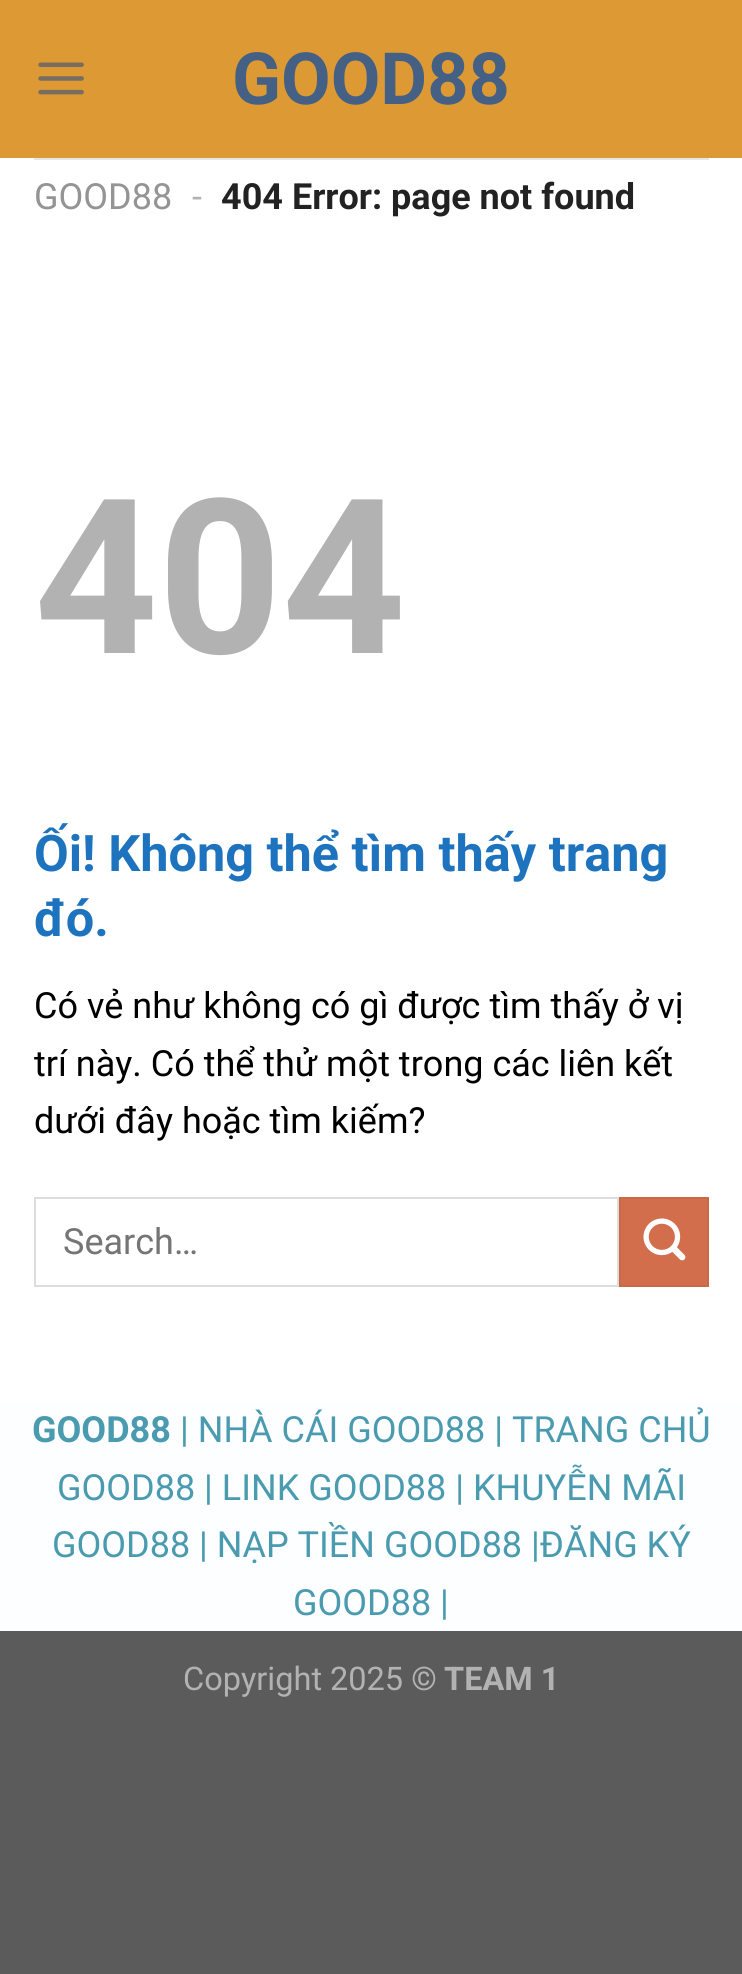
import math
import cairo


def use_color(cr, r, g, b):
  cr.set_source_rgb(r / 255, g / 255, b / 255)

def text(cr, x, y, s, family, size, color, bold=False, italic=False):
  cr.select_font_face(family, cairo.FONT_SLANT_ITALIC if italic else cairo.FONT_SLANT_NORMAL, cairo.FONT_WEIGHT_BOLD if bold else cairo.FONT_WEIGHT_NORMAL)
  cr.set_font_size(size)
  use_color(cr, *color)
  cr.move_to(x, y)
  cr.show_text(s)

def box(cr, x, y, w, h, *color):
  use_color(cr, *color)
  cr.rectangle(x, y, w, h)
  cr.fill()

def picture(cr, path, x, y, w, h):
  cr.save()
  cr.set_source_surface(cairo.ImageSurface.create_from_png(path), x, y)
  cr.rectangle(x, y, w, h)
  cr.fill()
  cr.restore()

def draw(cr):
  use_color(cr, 91, 91, 91)
  cr.paint()
  box(cr, 0, 158, 742, 1244, 255, 255, 255)
  box(cr, 0, 0, 742, 158, 221, 153, 51)
  picture(cr, "img_01.png", 38, 62, 46, 33)
  box(cr, 34, 158, 675, 2, 230, 230, 230)
  cr.rectangle(35, 1198, 583, 88)
  use_color(cr, 221, 221, 221)
  cr.stroke()
  use_color(cr, 210, 110, 75)
  cr.rectangle(620, 1198, 88, 88)
  cr.fill_preserve()
  use_color(cr, 200, 105, 71)
  cr.stroke()
  picture(cr, "img_02.png", 643, 1218, 43, 43)
  box(cr, 0, 1402, 742, 229, 253, 254, 255)
  text(cr, 232, 104, "GOOD88", "Roboto", 72, (68, 96, 132), bold=True)
  text(cr, 34, 209, "GOOD88", "Roboto", 36, (148, 148, 148))
  text(cr, 192, 209, "-", "Roboto", 36, (178, 178, 178))
  text(cr, 221, 209, "404 Error: page not found", "Roboto", 36, (34, 34, 34), bold=True)
  text(cr, 34, 653, "404", "Roboto", 216, (178, 178, 178), bold=True)
  text(cr, 34, 871, "Ối! Không thể tìm thấy trang", "Roboto", 50.4, (30, 115, 190), bold=True)
  text(cr, 34, 936, "đó.", "Roboto", 50.4, (30, 115, 190), bold=True)
  text(cr, 34, 1018, "Có vẻ như không có gì được tìm thấy ở vị", "Roboto", 36, (0, 0, 0))
  text(cr, 34, 1076, "trí này. Có thể thử một trong các liên kết", "Roboto", 36, (0, 0, 0))
  text(cr, 34, 1133, "dưới đây hoặc tìm kiếm?", "Roboto", 36, (0, 0, 0))
  text(cr, 63, 1254, "Search…", "Roboto", 36, (117, 117, 117))
  text(cr, 32, 1442, "GOOD88", "Roboto", 36, (74, 155, 176), bold=True)
  text(cr, 180, 1442, "| NHÀ CÁI GOOD88 | TRANG CHỦ", "Roboto", 36, (74, 155, 176))
  text(cr, 57, 1500, "GOOD88 | LINK GOOD88 | KHUYỄN MÃI", "Roboto", 36, (74, 155, 176))
  text(cr, 52, 1557, "GOOD88 | NẠP TIỀN GOOD88 |ĐĂNG KÝ", "Roboto", 36, (74, 155, 176))
  text(cr, 293, 1615, "GOOD88 |", "Roboto", 36, (74, 155, 176))
  text(cr, 183, 1690, "Copyright 2025 ©", "Roboto", 32.5, (178, 178, 178))
  text(cr, 444, 1690, "TEAM 1", "Roboto", 32.5, (178, 178, 178), bold=True)


surface = cairo.ImageSurface(cairo.FORMAT_RGB24, 742, 1974)
cr = cairo.Context(surface)
options = cairo.FontOptions()
options.set_hint_metrics(cairo.HINT_METRICS_OFF)
options.set_hint_style(cairo.HINT_STYLE_NONE)
cr.set_font_options(options)
cr.set_miter_limit(4)
draw(cr)
surface.write_to_png("out.png")
